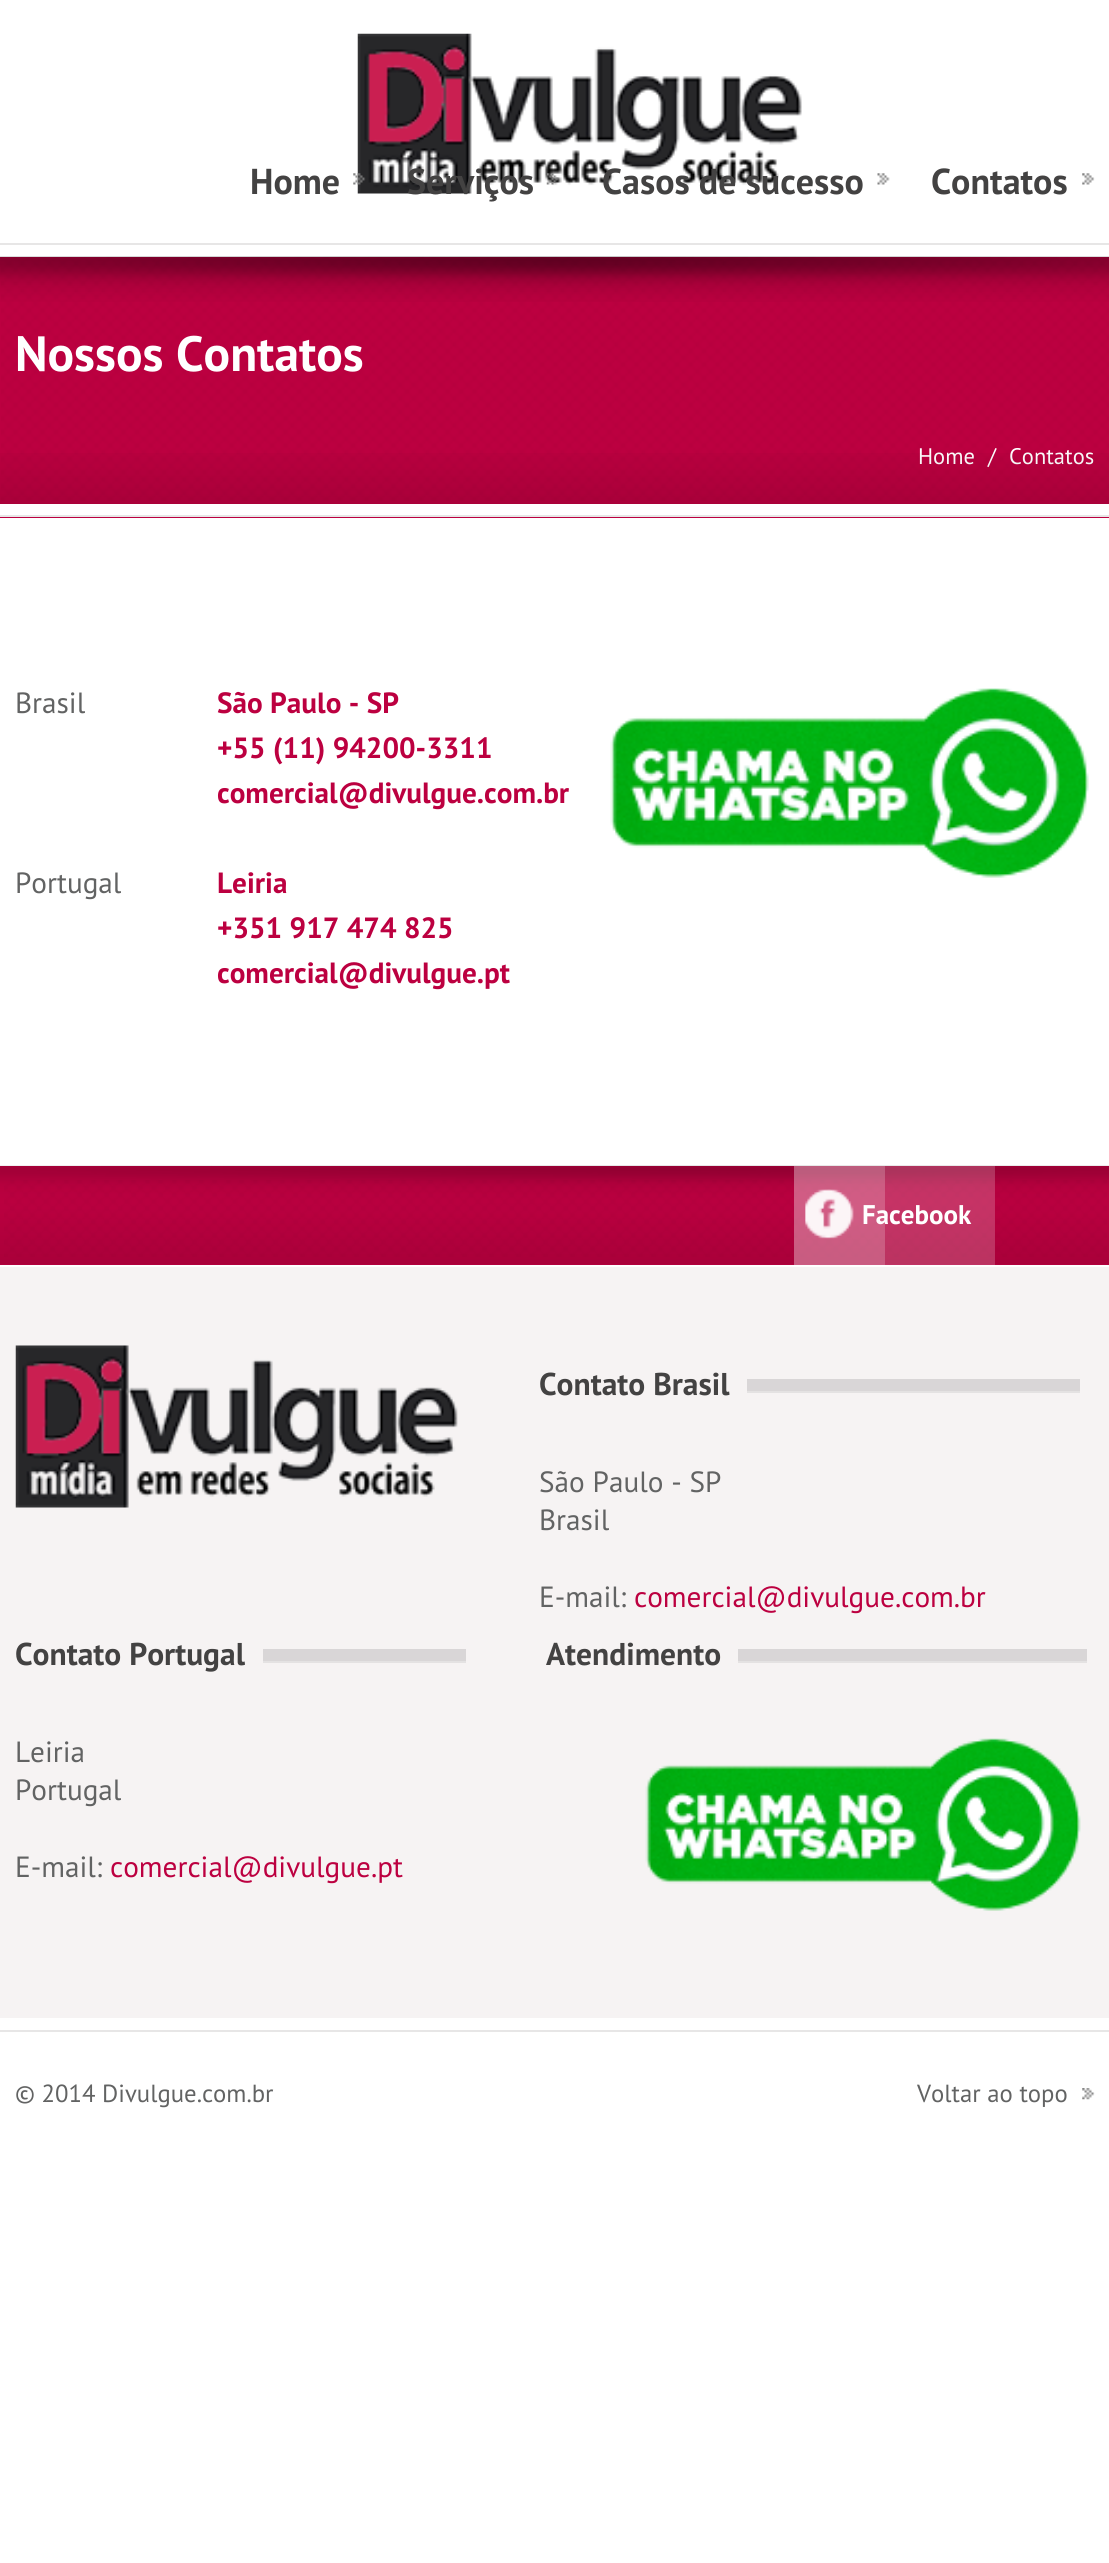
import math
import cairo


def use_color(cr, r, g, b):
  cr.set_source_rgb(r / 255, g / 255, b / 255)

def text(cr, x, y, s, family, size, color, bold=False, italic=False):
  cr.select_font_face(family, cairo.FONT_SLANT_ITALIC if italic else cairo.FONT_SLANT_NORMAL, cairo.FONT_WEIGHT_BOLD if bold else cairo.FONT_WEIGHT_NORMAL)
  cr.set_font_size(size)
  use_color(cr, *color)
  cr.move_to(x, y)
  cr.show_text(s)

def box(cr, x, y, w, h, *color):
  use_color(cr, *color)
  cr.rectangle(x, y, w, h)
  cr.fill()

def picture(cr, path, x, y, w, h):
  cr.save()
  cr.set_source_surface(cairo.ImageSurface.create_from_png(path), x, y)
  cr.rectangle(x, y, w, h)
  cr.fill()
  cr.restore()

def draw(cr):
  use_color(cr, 255, 255, 255)
  cr.paint()
  picture(cr, "img_01.png", 357, 33, 445, 161)
  picture(cr, "img_02.png", 353, 173, 13, 12)
  picture(cr, "img_03.png", 546, 173, 13, 12)
  picture(cr, "img_04.png", 877, 173, 13, 12)
  picture(cr, "img_05.png", 1082, 173, 13, 12)
  box(cr, 0, 257, 1109, 261, 188, 0, 64)
  picture(cr, "img_06.png", 1, 257, 1108, 244)
  box(cr, 0, 243, 1109, 2, 231, 230, 230)
  picture(cr, "img_07.png", 0, 256, 1109, 46)
  box(cr, 0, 504, 1109, 11, 255, 255, 255)
  box(cr, 0, 515, 1109, 2, 231, 230, 230)
  picture(cr, "img_09.png", 610, 688, 479, 190)
  box(cr, 0, 1166, 1109, 99, 188, 0, 64)
  picture(cr, "img_10.png", 0, 1165, 1109, 100)
  picture(cr, "img_11.png", 4, 1180, 1103, 77)
  cr.set_source_rgba(1, 1, 1, 0.2)
  cr.rectangle(794, 1166, 91, 99)
  cr.fill()
  box(cr, 0, 1267, 1109, 751, 246, 243, 243)
  picture(cr, "img_14.png", 15, 1345, 443, 163)
  box(cr, 747, 1379, 333, 12, 217, 214, 215)
  box(cr, 747, 1391, 333, 2, 228, 226, 226)
  box(cr, 263, 1649, 203, 12, 217, 214, 215)
  box(cr, 263, 1661, 203, 2, 228, 226, 226)
  box(cr, 738, 1649, 349, 12, 217, 214, 215)
  box(cr, 738, 1661, 349, 2, 228, 226, 226)
  picture(cr, "img_15.png", 645, 1738, 436, 173)
  box(cr, 0, 2030, 1109, 2, 231, 230, 230)
  picture(cr, "img_16.png", 1082, 2088, 13, 12)
  text(cr, 250, 194, "Home", "PT Sans", 36, (67, 66, 66), bold=True)
  text(cr, 407, 194, "Serviços", "PT Sans", 36, (67, 66, 66), bold=True)
  text(cr, 602, 194, "Casos de sucesso", "PT Sans", 36, (67, 66, 66), bold=True)
  text(cr, 931, 194, "Contatos", "PT Sans", 36, (67, 66, 66), bold=True)
  text(cr, 15, 371, "Nossos Contatos", "PT Sans", 49.5, (255, 255, 255), bold=True)
  text(cr, 918, 464, "Home", "PT Sans", 22.5, (255, 255, 255))
  text(cr, 988, 464, "/", "PT Sans", 22.5, (255, 255, 255))
  text(cr, 1009, 464, "Contatos", "PT Sans", 22.5, (255, 255, 255))
  picture(cr, "img_08.png", 0, 453, 1109, 51)
  text(cr, 15, 713, "Brasil", "PT Sans", 29.25, (98, 99, 99))
  text(cr, 15, 893, "Portugal", "PT Sans", 29.25, (98, 99, 99))
  text(cr, 217, 713, "São Paulo - SP", "PT Sans", 29.25, (188, 0, 64), bold=True)
  text(cr, 217, 758, "+55 (11) 94200-3311", "PT Sans", 29.25, (188, 0, 64), bold=True)
  text(cr, 217, 803, "comercial@divulgue.com.br", "PT Sans", 29.25, (188, 0, 64), bold=True)
  text(cr, 217, 893, "Leiria", "PT Sans", 29.25, (188, 0, 64), bold=True)
  text(cr, 217, 938, "+351 917 474 825", "PT Sans", 29.25, (188, 0, 64), bold=True)
  text(cr, 217, 983, "comercial@divulgue.pt", "PT Sans", 29.25, (188, 0, 64), bold=True)
  text(cr, 862, 1224, "Facebook", "PT Sans", 27, (255, 255, 255), bold=True)
  cr.set_source_rgba(1, 1, 1, 0.2)
  cr.rectangle(794, 1166, 201, 99)
  cr.fill()
  picture(cr, "img_12.png", 805, 1189, 49, 50)
  picture(cr, "img_13.png", 805, 1189, 49, 50)
  text(cr, 539, 1395, "Contato Brasil", "PT Sans", 31.5, (67, 66, 66), bold=True)
  text(cr, 539, 1492, "São Paulo - SP", "PT Sans", 29.25, (98, 99, 99))
  text(cr, 539, 1530, "Brasil", "PT Sans", 29.25, (98, 99, 99))
  text(cr, 539, 1607, "E-mail:", "PT Sans", 29.25, (98, 99, 99))
  text(cr, 634, 1607, "comercial@divulgue.com.br", "PT Sans", 29.25, (188, 0, 64))
  text(cr, 15, 1665, "Contato Portugal", "PT Sans", 31.5, (67, 66, 66), bold=True)
  text(cr, 15, 1762, "Leiria", "PT Sans", 29.25, (98, 99, 99))
  text(cr, 15, 1800, "Portugal", "PT Sans", 29.25, (98, 99, 99))
  text(cr, 15, 1877, "E-mail:", "PT Sans", 29.25, (98, 99, 99))
  text(cr, 110, 1877, "comercial@divulgue.pt", "PT Sans", 29.25, (188, 0, 64))
  text(cr, 546, 1665, "Atendimento", "PT Sans", 31.5, (67, 66, 66), bold=True)
  text(cr, 15, 2102, "© 2014 Divulgue.com.br", "PT Sans", 24.75, (98, 99, 99))
  text(cr, 917, 2102, "Voltar ao topo", "PT Sans", 24.75, (98, 99, 99))


surface = cairo.ImageSurface(cairo.FORMAT_RGB24, 1109, 2563)
cr = cairo.Context(surface)
options = cairo.FontOptions()
options.set_hint_metrics(cairo.HINT_METRICS_OFF)
options.set_hint_style(cairo.HINT_STYLE_NONE)
cr.set_font_options(options)
cr.set_miter_limit(4)
draw(cr)
surface.write_to_png("out.png")
